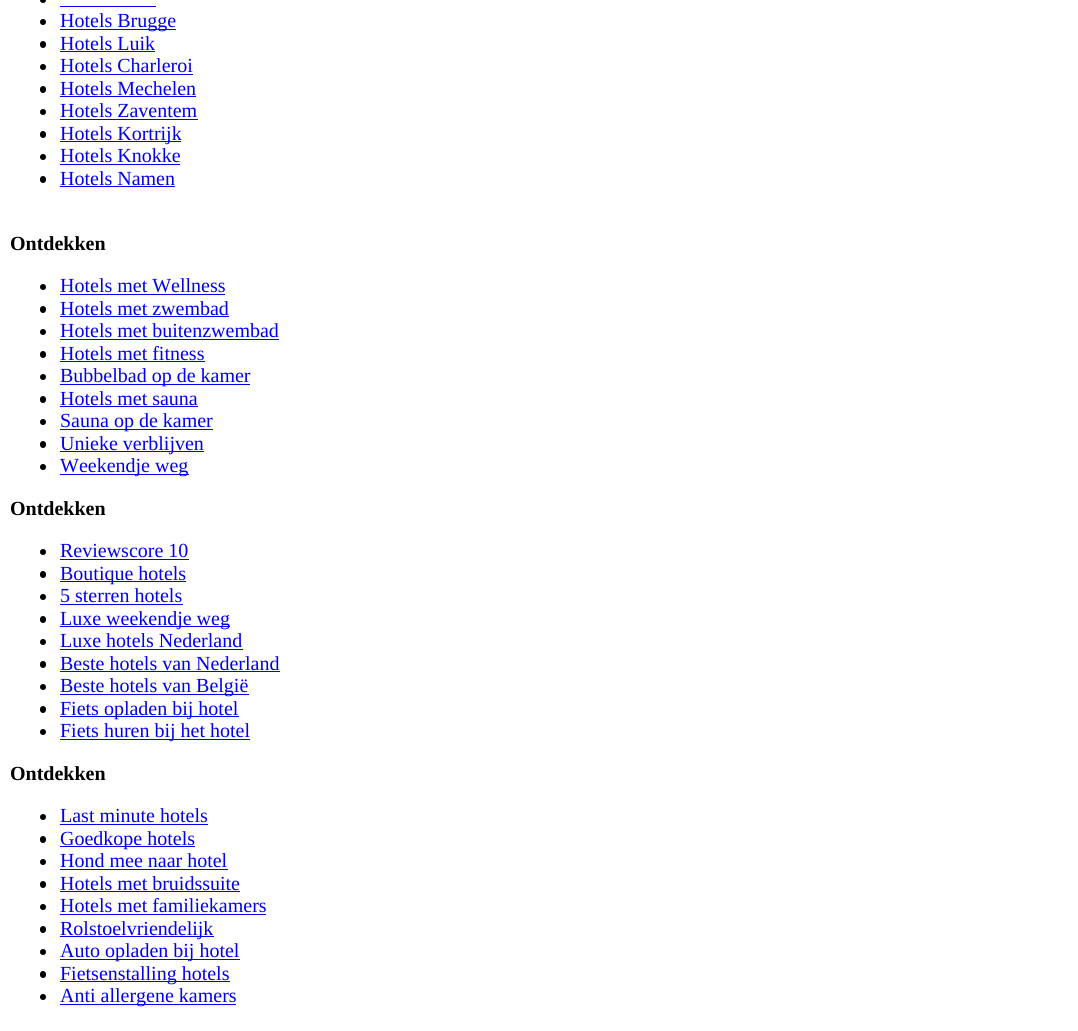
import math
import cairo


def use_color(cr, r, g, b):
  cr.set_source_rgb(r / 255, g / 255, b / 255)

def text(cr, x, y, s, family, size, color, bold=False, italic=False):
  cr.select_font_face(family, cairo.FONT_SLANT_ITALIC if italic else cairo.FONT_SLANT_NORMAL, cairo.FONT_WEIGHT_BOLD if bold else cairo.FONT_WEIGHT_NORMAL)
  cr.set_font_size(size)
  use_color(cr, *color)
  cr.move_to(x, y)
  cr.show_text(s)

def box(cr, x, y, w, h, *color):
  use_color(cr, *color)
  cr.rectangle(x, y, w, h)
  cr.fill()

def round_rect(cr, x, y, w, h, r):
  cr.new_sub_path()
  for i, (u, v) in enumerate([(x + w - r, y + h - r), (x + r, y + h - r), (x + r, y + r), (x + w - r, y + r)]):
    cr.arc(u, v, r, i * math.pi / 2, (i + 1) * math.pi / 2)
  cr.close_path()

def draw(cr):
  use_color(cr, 255, 255, 255)
  cr.paint()
  use_color(cr, 0, 0, 0)
  cr.arc(43, 0, 3, 0, 2 * math.pi)
  cr.fill()
  box(cr, 60, 6, 96, 1, 0, 0, 238)
  use_color(cr, 0, 0, 0)
  cr.arc(43, 22, 3, 0, 2 * math.pi)
  cr.fill()
  box(cr, 60, 29, 116, 1, 0, 0, 238)
  use_color(cr, 0, 0, 0)
  round_rect(cr, 40, 41, 6, 7, 3)
  cr.fill()
  box(cr, 60, 51, 95, 1, 0, 0, 238)
  use_color(cr, 0, 0, 0)
  cr.arc(43, 67, 3, 0, 2 * math.pi)
  cr.fill()
  box(cr, 60, 74, 133, 1, 0, 0, 238)
  use_color(cr, 0, 0, 0)
  round_rect(cr, 40, 86, 6, 7, 3)
  cr.fill()
  box(cr, 60, 96, 136, 1, 0, 0, 238)
  use_color(cr, 0, 0, 0)
  cr.arc(43, 112, 3, 0, 2 * math.pi)
  cr.fill()
  box(cr, 60, 119, 138, 1, 0, 0, 238)
  use_color(cr, 0, 0, 0)
  round_rect(cr, 40, 131, 6, 7, 3)
  cr.fill()
  box(cr, 60, 141, 121, 1, 0, 0, 238)
  use_color(cr, 0, 0, 0)
  cr.arc(43, 157, 3, 0, 2 * math.pi)
  cr.fill()
  box(cr, 60, 164, 120, 1, 0, 0, 238)
  use_color(cr, 0, 0, 0)
  round_rect(cr, 40, 176, 6, 7, 3)
  cr.fill()
  box(cr, 60, 186, 115, 1, 0, 0, 238)
  use_color(cr, 0, 0, 0)
  cr.arc(43, 287, 3, 0, 2 * math.pi)
  cr.fill()
  box(cr, 60, 294, 165, 1, 0, 0, 238)
  use_color(cr, 0, 0, 0)
  round_rect(cr, 40, 306, 6, 7, 3)
  cr.fill()
  box(cr, 60, 316, 169, 1, 0, 0, 238)
  use_color(cr, 0, 0, 0)
  cr.arc(43, 332, 3, 0, 2 * math.pi)
  cr.fill()
  box(cr, 60, 339, 219, 1, 0, 0, 238)
  use_color(cr, 0, 0, 0)
  round_rect(cr, 40, 351, 6, 7, 3)
  cr.fill()
  box(cr, 60, 361, 145, 1, 0, 0, 238)
  use_color(cr, 0, 0, 0)
  cr.arc(43, 377, 3, 0, 2 * math.pi)
  cr.fill()
  box(cr, 60, 384, 190, 1, 0, 0, 238)
  use_color(cr, 0, 0, 0)
  round_rect(cr, 40, 396, 6, 7, 3)
  cr.fill()
  box(cr, 60, 406, 138, 1, 0, 0, 238)
  use_color(cr, 0, 0, 0)
  cr.arc(43, 422, 3, 0, 2 * math.pi)
  cr.fill()
  box(cr, 60, 429, 153, 1, 0, 0, 238)
  use_color(cr, 0, 0, 0)
  round_rect(cr, 40, 441, 6, 7, 3)
  cr.fill()
  box(cr, 60, 451, 144, 1, 0, 0, 238)
  use_color(cr, 0, 0, 0)
  cr.arc(43, 467, 3, 0, 2 * math.pi)
  cr.fill()
  box(cr, 60, 474, 129, 1, 0, 0, 238)
  use_color(cr, 0, 0, 0)
  cr.arc(43, 552, 3, 0, 2 * math.pi)
  cr.fill()
  box(cr, 60, 559, 129, 1, 0, 0, 238)
  use_color(cr, 0, 0, 0)
  round_rect(cr, 40, 571, 6, 7, 3)
  cr.fill()
  box(cr, 60, 581, 126, 1, 0, 0, 238)
  use_color(cr, 0, 0, 0)
  cr.arc(43, 597, 3, 0, 2 * math.pi)
  cr.fill()
  box(cr, 60, 604, 123, 1, 0, 0, 238)
  use_color(cr, 0, 0, 0)
  round_rect(cr, 40, 616, 6, 7, 3)
  cr.fill()
  box(cr, 60, 626, 170, 1, 0, 0, 238)
  use_color(cr, 0, 0, 0)
  cr.arc(43, 642, 3, 0, 2 * math.pi)
  cr.fill()
  box(cr, 60, 649, 183, 1, 0, 0, 238)
  use_color(cr, 0, 0, 0)
  round_rect(cr, 40, 661, 6, 7, 3)
  cr.fill()
  box(cr, 60, 671, 220, 1, 0, 0, 238)
  use_color(cr, 0, 0, 0)
  cr.arc(43, 687, 3, 0, 2 * math.pi)
  cr.fill()
  box(cr, 60, 694, 189, 1, 0, 0, 238)
  use_color(cr, 0, 0, 0)
  round_rect(cr, 40, 706, 6, 7, 3)
  cr.fill()
  box(cr, 60, 716, 179, 1, 0, 0, 238)
  use_color(cr, 0, 0, 0)
  cr.arc(43, 732, 3, 0, 2 * math.pi)
  cr.fill()
  box(cr, 60, 739, 190, 1, 0, 0, 238)
  use_color(cr, 0, 0, 0)
  cr.arc(43, 817, 3, 0, 2 * math.pi)
  cr.fill()
  box(cr, 60, 824, 148, 1, 0, 0, 238)
  use_color(cr, 0, 0, 0)
  round_rect(cr, 40, 836, 6, 7, 3)
  cr.fill()
  box(cr, 60, 846, 135, 1, 0, 0, 238)
  use_color(cr, 0, 0, 0)
  cr.arc(43, 862, 3, 0, 2 * math.pi)
  cr.fill()
  box(cr, 60, 869, 168, 1, 0, 0, 238)
  use_color(cr, 0, 0, 0)
  round_rect(cr, 40, 881, 6, 7, 3)
  cr.fill()
  box(cr, 60, 891, 180, 1, 0, 0, 238)
  use_color(cr, 0, 0, 0)
  cr.arc(43, 907, 3, 0, 2 * math.pi)
  cr.fill()
  box(cr, 60, 914, 206, 1, 0, 0, 238)
  use_color(cr, 0, 0, 0)
  round_rect(cr, 40, 926, 6, 7, 3)
  cr.fill()
  box(cr, 60, 936, 154, 1, 0, 0, 238)
  use_color(cr, 0, 0, 0)
  cr.arc(43, 952, 3, 0, 2 * math.pi)
  cr.fill()
  box(cr, 60, 959, 180, 1, 0, 0, 238)
  use_color(cr, 0, 0, 0)
  round_rect(cr, 40, 971, 6, 7, 3)
  cr.fill()
  box(cr, 60, 981, 170, 1, 0, 0, 238)
  use_color(cr, 0, 0, 0)
  cr.arc(43, 997, 3, 0, 2 * math.pi)
  cr.fill()
  box(cr, 60, 1004, 176, 1, 0, 0, 238)
  text(cr, 60, 27, "Hotels Brugge", "Liberation Serif", 20, (0, 0, 238))
  text(cr, 60, 50, "Hotels Luik", "Liberation Serif", 20, (0, 0, 238))
  text(cr, 60, 72, "Hotels Charleroi", "Liberation Serif", 20, (0, 0, 238))
  text(cr, 60, 95, "Hotels Mechelen", "Liberation Serif", 20, (0, 0, 238))
  text(cr, 60, 117, "Hotels Zaventem", "Liberation Serif", 20, (0, 0, 238))
  text(cr, 60, 140, "Hotels Kortrijk", "Liberation Serif", 20, (0, 0, 238))
  text(cr, 60, 162, "Hotels Knokke", "Liberation Serif", 20, (0, 0, 238))
  text(cr, 60, 185, "Hotels Namen", "Liberation Serif", 20, (0, 0, 238))
  text(cr, 10, 250, "Ontdekken", "Liberation Serif", 20, (0, 0, 0), bold=True)
  text(cr, 60, 292, "Hotels met Wellness", "Liberation Serif", 20, (0, 0, 238))
  text(cr, 60, 315, "Hotels met zwembad", "Liberation Serif", 20, (0, 0, 238))
  text(cr, 60, 337, "Hotels met buitenzwembad", "Liberation Serif", 20, (0, 0, 238))
  text(cr, 60, 360, "Hotels met fitness", "Liberation Serif", 20, (0, 0, 238))
  text(cr, 60, 382, "Bubbelbad op de kamer", "Liberation Serif", 20, (0, 0, 238))
  text(cr, 60, 405, "Hotels met sauna", "Liberation Serif", 20, (0, 0, 238))
  text(cr, 60, 427, "Sauna op de kamer", "Liberation Serif", 20, (0, 0, 238))
  text(cr, 60, 450, "Unieke verblijven", "Liberation Serif", 20, (0, 0, 238))
  text(cr, 60, 472, "Weekendje weg", "Liberation Serif", 20, (0, 0, 238))
  text(cr, 10, 515, "Ontdekken", "Liberation Serif", 20, (0, 0, 0), bold=True)
  text(cr, 60, 557, "Reviewscore 10", "Liberation Serif", 20, (0, 0, 238))
  text(cr, 60, 580, "Boutique hotels", "Liberation Serif", 20, (0, 0, 238))
  text(cr, 60, 602, "5 sterren hotels", "Liberation Serif", 20, (0, 0, 238))
  text(cr, 60, 625, "Luxe weekendje weg", "Liberation Serif", 20, (0, 0, 238))
  text(cr, 60, 647, "Luxe hotels Nederland", "Liberation Serif", 20, (0, 0, 238))
  text(cr, 60, 670, "Beste hotels van Nederland", "Liberation Serif", 20, (0, 0, 238))
  text(cr, 60, 692, "Beste hotels van België", "Liberation Serif", 20, (0, 0, 238))
  text(cr, 60, 715, "Fiets opladen bij hotel", "Liberation Serif", 20, (0, 0, 238))
  text(cr, 60, 737, "Fiets huren bij het hotel", "Liberation Serif", 20, (0, 0, 238))
  text(cr, 10, 780, "Ontdekken", "Liberation Serif", 20, (0, 0, 0), bold=True)
  text(cr, 60, 822, "Last minute hotels", "Liberation Serif", 20, (0, 0, 238))
  text(cr, 60, 845, "Goedkope hotels", "Liberation Serif", 20, (0, 0, 238))
  text(cr, 60, 867, "Hond mee naar hotel", "Liberation Serif", 20, (0, 0, 238))
  text(cr, 60, 890, "Hotels met bruidssuite", "Liberation Serif", 20, (0, 0, 238))
  text(cr, 60, 912, "Hotels met familiekamers", "Liberation Serif", 20, (0, 0, 238))
  text(cr, 60, 935, "Rolstoelvriendelijk", "Liberation Serif", 20, (0, 0, 238))
  text(cr, 60, 957, "Auto opladen bij hotel", "Liberation Serif", 20, (0, 0, 238))
  text(cr, 60, 980, "Fietsenstalling hotels", "Liberation Serif", 20, (0, 0, 238))
  text(cr, 60, 1002, "Anti allergene kamers", "Liberation Serif", 20, (0, 0, 238))


surface = cairo.ImageSurface(cairo.FORMAT_RGB24, 1078, 1031)
cr = cairo.Context(surface)
options = cairo.FontOptions()
options.set_hint_metrics(cairo.HINT_METRICS_OFF)
options.set_hint_style(cairo.HINT_STYLE_NONE)
cr.set_font_options(options)
cr.set_miter_limit(4)
draw(cr)
surface.write_to_png("out.png")
